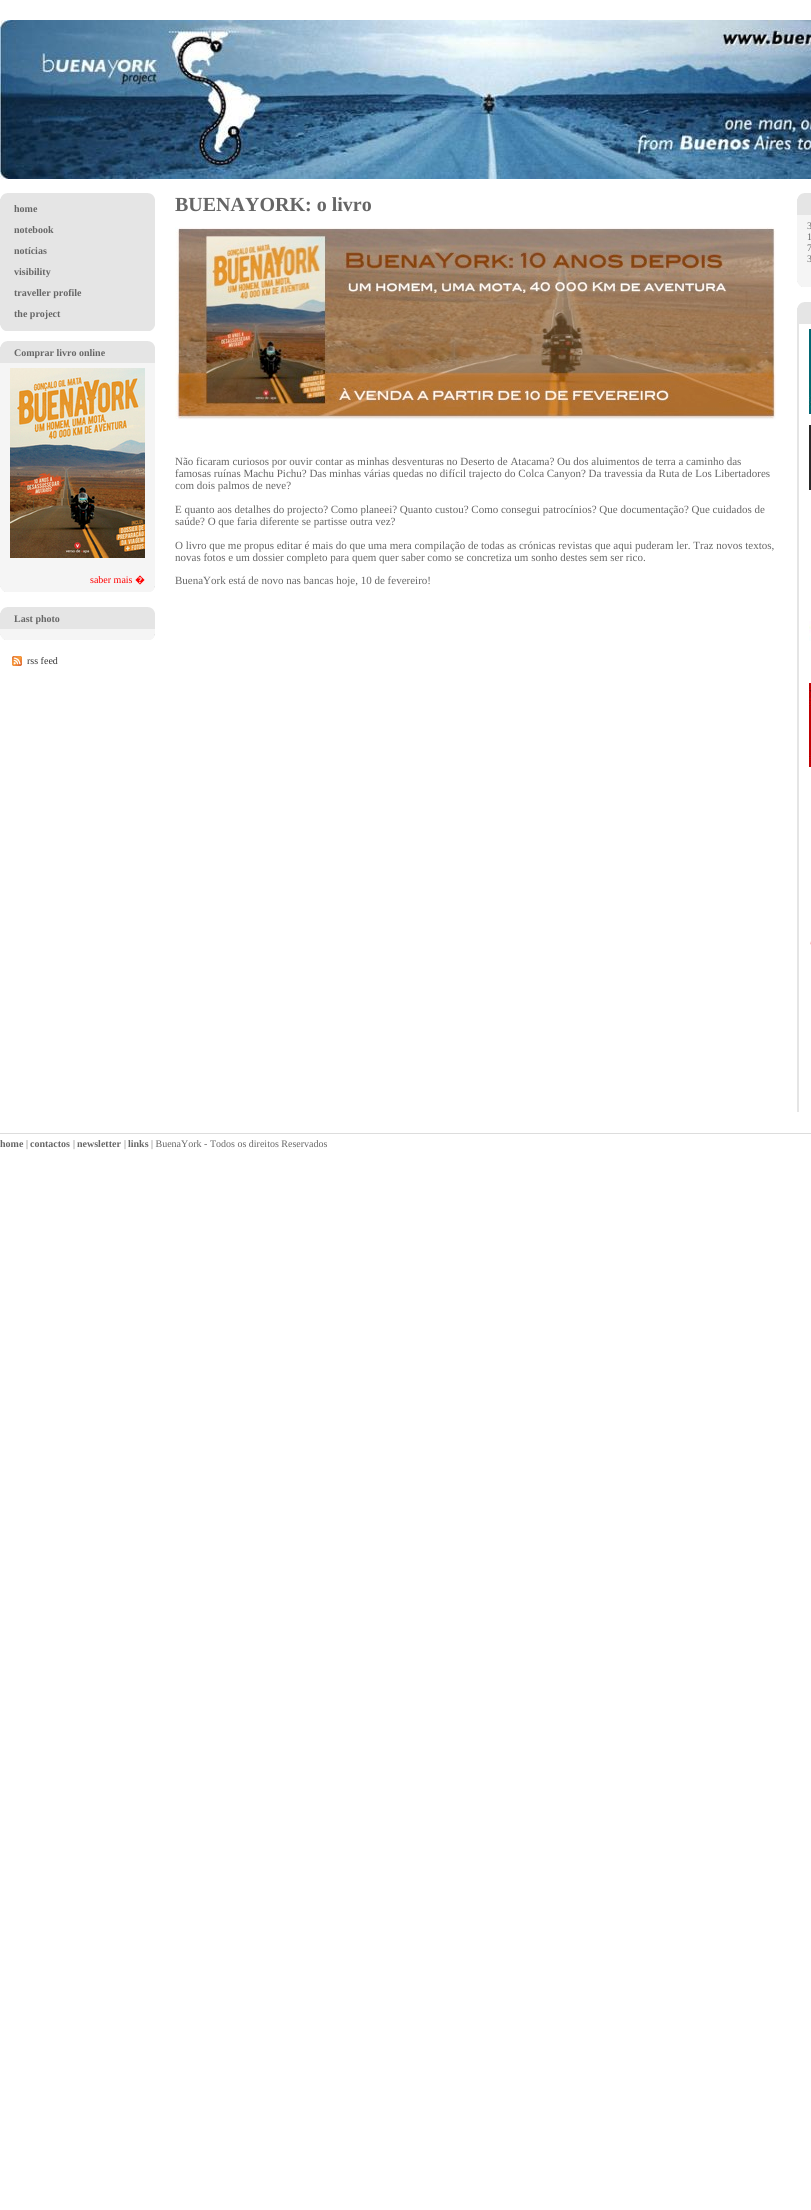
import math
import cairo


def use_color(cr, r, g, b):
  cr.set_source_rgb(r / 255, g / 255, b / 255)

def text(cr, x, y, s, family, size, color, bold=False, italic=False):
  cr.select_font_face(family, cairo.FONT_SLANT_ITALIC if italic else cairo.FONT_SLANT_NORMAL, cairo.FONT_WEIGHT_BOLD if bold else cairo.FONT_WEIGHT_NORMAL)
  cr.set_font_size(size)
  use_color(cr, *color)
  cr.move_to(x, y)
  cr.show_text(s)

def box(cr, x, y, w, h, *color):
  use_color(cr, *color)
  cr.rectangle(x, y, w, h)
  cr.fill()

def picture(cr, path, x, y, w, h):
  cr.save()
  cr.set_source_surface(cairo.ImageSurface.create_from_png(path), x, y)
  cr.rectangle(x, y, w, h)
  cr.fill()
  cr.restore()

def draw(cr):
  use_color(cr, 255, 255, 255)
  cr.paint()
  picture(cr, "img_01.png", 0, 20, 811, 159)
  picture(cr, "img_02.png", 0, 193, 155, 6)
  box(cr, 0, 199, 155, 126, 229, 229, 229)
  picture(cr, "img_03.png", 0, 325, 155, 6)
  picture(cr, "img_02.png", 0, 341, 155, 6)
  box(cr, 0, 347, 155, 16, 229, 229, 229)
  box(cr, 0, 363, 155, 223, 245, 245, 245)
  picture(cr, "img_04.png", 10, 368, 135, 190)
  picture(cr, "img_05.png", 0, 586, 155, 6)
  picture(cr, "img_02.png", 0, 607, 155, 6)
  box(cr, 0, 613, 155, 16, 229, 229, 229)
  box(cr, 0, 629, 155, 5, 245, 245, 245)
  picture(cr, "img_05.png", 0, 634, 155, 6)
  picture(cr, "img_06.png", 12, 656, 10, 10)
  picture(cr, "img_07.png", 175, 227, 601, 193)
  picture(cr, "img_08.png", 797, 193, 14, 6)
  box(cr, 797, 199, 14, 16, 229, 229, 229)
  box(cr, 797, 215, 14, 66, 245, 245, 245)
  picture(cr, "img_09.png", 797, 281, 14, 6)
  picture(cr, "img_08.png", 797, 302, 14, 6)
  box(cr, 797, 308, 14, 16, 229, 229, 229)
  box(cr, 797, 324, 2, 788, 229, 229, 229)
  picture(cr, "img_10.png", 809, 329, 2, 85)
  box(cr, 809, 425, 2, 65, 41, 41, 41)
  picture(cr, "img_11.png", 809, 621, 2, 20)
  picture(cr, "img_12.png", 809, 683, 2, 84)
  picture(cr, "img_13.png", 810, 941, 1, 4)
  box(cr, 0, 1133, 811, 1, 221, 221, 221)
  text(cr, 14, 212, "home", "Liberation Serif", 10, (102, 102, 102), bold=True)
  text(cr, 14, 233, "notebook", "Liberation Serif", 10, (102, 102, 102), bold=True)
  text(cr, 14, 254, "notícias", "Liberation Serif", 10, (102, 102, 102), bold=True)
  text(cr, 14, 275, "visibility", "Liberation Serif", 10, (102, 102, 102), bold=True)
  text(cr, 14, 296, "traveller profile", "Liberation Serif", 10, (102, 102, 102), bold=True)
  text(cr, 14, 317, "the project", "Liberation Serif", 10, (102, 102, 102), bold=True)
  text(cr, 14, 356, "Comprar livro online", "Liberation Serif", 10, (102, 102, 102), bold=True)
  text(cr, 90, 583, "saber mais", "Liberation Serif", 10, (255, 0, 0))
  text(cr, 135, 583, "�", "Noto Sans", 10, (255, 0, 0))
  text(cr, 14, 622, "Last photo", "Liberation Serif", 10, (102, 102, 102), bold=True)
  text(cr, 27, 664, "rss feed", "Liberation Serif", 10, (51, 51, 51))
  text(cr, 175, 211, "BUENAYORK: o livro", "Liberation Serif", 20, (102, 102, 102), bold=True)
  text(cr, 175, 465, "Não ficaram curiosos por ouvir contar as minhas desventuras no Deserto de Atacama? Ou dos aluimentos de terra a caminho das", "Liberation Serif", 11, (102, 102, 102))
  text(cr, 175, 477, "famosas ruínas Machu Pichu? Das minhas várias quedas no difícil trajecto do Colca Canyon? Da travessia da Ruta de Los Libertadores", "Liberation Serif", 11, (102, 102, 102))
  text(cr, 175, 489, "com dois palmos de neve?", "Liberation Serif", 11, (102, 102, 102))
  text(cr, 175, 513, "E quanto aos detalhes do projecto? Como planeei? Quanto custou? Como consegui patrocínios? Que documentação? Que cuidados de", "Liberation Serif", 11, (102, 102, 102))
  text(cr, 175, 525, "saúde? O que faria diferente se partisse outra vez?", "Liberation Serif", 11, (102, 102, 102))
  text(cr, 175, 549, "O livro que me propus editar é mais do que uma mera compilação de todas as crónicas revistas que aqui puderam ler. Traz novos textos,", "Liberation Serif", 11, (102, 102, 102))
  text(cr, 175, 561, "novas fotos e um dossier completo para quem quer saber como se concretiza um sonho destes sem ser rico.", "Liberation Serif", 11, (102, 102, 102))
  text(cr, 175, 584, "BuenaYork está de novo nas bancas hoje, 10 de fevereiro!", "Liberation Serif", 11, (102, 102, 102))
  text(cr, 807, 229, "3", "Liberation Serif", 10, (102, 102, 102))
  text(cr, 807, 240, "1", "Liberation Serif", 10, (102, 102, 102))
  text(cr, 807, 251, "7", "Liberation Serif", 10, (102, 102, 102))
  text(cr, 807, 262, "3", "Liberation Serif", 10, (102, 102, 102))
  text(cr, 0, 1147, "home", "Liberation Serif", 10, (102, 102, 102), bold=True)
  text(cr, 26, 1147, "|", "Liberation Serif", 10, (102, 102, 102))
  text(cr, 30, 1147, "contactos", "Liberation Serif", 10, (102, 102, 102), bold=True)
  text(cr, 73, 1147, "|", "Liberation Serif", 10, (102, 102, 102))
  text(cr, 77, 1147, "newsletter", "Liberation Serif", 10, (102, 102, 102), bold=True)
  text(cr, 124, 1147, "|", "Liberation Serif", 10, (102, 102, 102))
  text(cr, 128, 1147, "links", "Liberation Serif", 10, (102, 102, 102), bold=True)
  text(cr, 151, 1147, "| BuenaYork - Todos os direitos Reservados", "Liberation Serif", 10, (102, 102, 102))


surface = cairo.ImageSurface(cairo.FORMAT_RGB24, 811, 2210)
cr = cairo.Context(surface)
options = cairo.FontOptions()
options.set_hint_metrics(cairo.HINT_METRICS_OFF)
options.set_hint_style(cairo.HINT_STYLE_NONE)
cr.set_font_options(options)
cr.set_miter_limit(4)
draw(cr)
surface.write_to_png("out.png")
